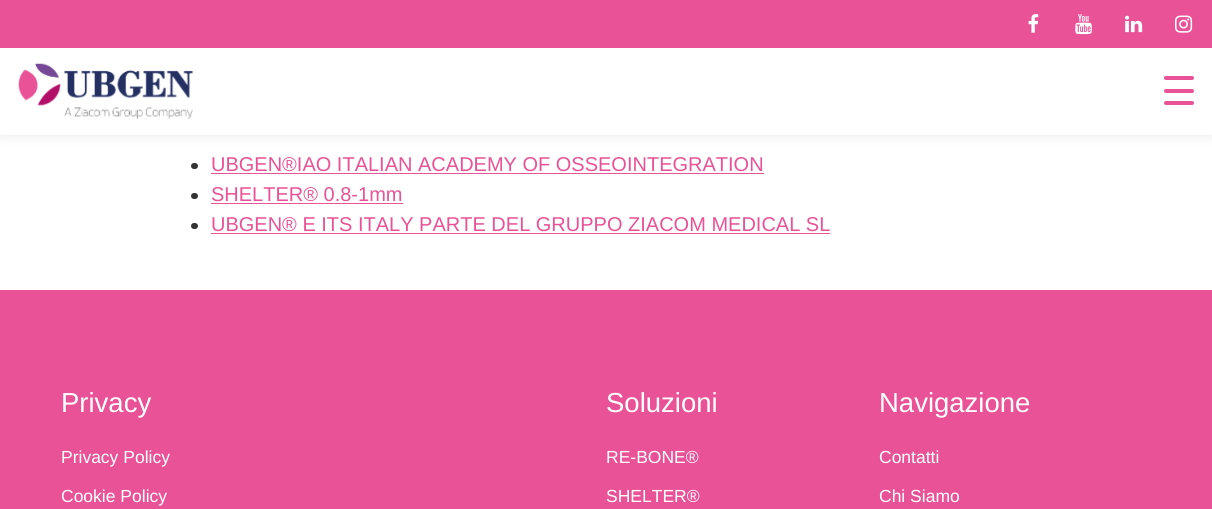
import math
import cairo


def use_color(cr, r, g, b):
  cr.set_source_rgb(r / 255, g / 255, b / 255)

def text(cr, x, y, s, family, size, color, bold=False, italic=False):
  cr.select_font_face(family, cairo.FONT_SLANT_ITALIC if italic else cairo.FONT_SLANT_NORMAL, cairo.FONT_WEIGHT_BOLD if bold else cairo.FONT_WEIGHT_NORMAL)
  cr.set_font_size(size)
  use_color(cr, *color)
  cr.move_to(x, y)
  cr.show_text(s)

def box(cr, x, y, w, h, *color):
  use_color(cr, *color)
  cr.rectangle(x, y, w, h)
  cr.fill()

def round_rect(cr, x, y, w, h, r):
  cr.new_sub_path()
  for i, (u, v) in enumerate([(x + w - r, y + h - r), (x + r, y + h - r), (x + r, y + r), (x + w - r, y + r)]):
    cr.arc(u, v, r, i * math.pi / 2, (i + 1) * math.pi / 2)
  cr.close_path()

def shadow(cr, x, y, w, h, r, blur, alpha):
  cr.push_group_with_content(cairo.CONTENT_ALPHA)
  cr.set_operator(cairo.OPERATOR_SOURCE)
  for i in range(15, -16, -2):
    e = blur * i / 6
    if min(w, h) + 2 * e > 0:
      cr.set_source_rgba(0, 0, 0, alpha * math.erfc((i - 1) / 8.5) / 2)
      round_rect(cr, x - e, y - e, w + 2 * e, h + 2 * e, max(0, min(r + e + blur * .6, min(w, h) / 2 + e)))
      cr.fill()
  cr.mask(cr.pop_group())

def picture(cr, path, x, y, w, h):
  cr.save()
  cr.set_source_surface(cairo.ImageSurface.create_from_png(path), x, y)
  cr.rectangle(x, y, w, h)
  cr.fill()
  cr.restore()

def draw(cr):
  use_color(cr, 255, 255, 255)
  cr.paint()
  use_color(cr, 0, 0, 0)
  shadow(cr, 0, 48, 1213, 87, 0, 6, 0.1)
  box(cr, 0, 0, 1212, 48, 233, 82, 150)
  picture(cr, "img_01.png", 1028, 14, 11, 19)
  picture(cr, "img_02.png", 1075, 14, 17, 21)
  picture(cr, "img_03.png", 1125, 15, 18, 18)
  picture(cr, "img_04.png", 1175, 15, 18, 18)
  box(cr, 0, 48, 1212, 87, 255, 255, 255)
  picture(cr, "img_05.png", 18, 63, 175, 56)
  use_color(cr, 233, 82, 150)
  round_rect(cr, 1164, 89, 30, 4, 2)
  cr.fill()
  round_rect(cr, 1164, 76, 30, 4, 2)
  cr.fill()
  round_rect(cr, 1164, 101, 30, 4, 2)
  cr.fill()
  use_color(cr, 51, 51, 51)
  round_rect(cr, 191, 163, 7, 6, 3)
  cr.fill()
  box(cr, 211, 173, 553, 1, 233, 82, 150)
  use_color(cr, 51, 51, 51)
  round_rect(cr, 191, 193, 7, 6, 3)
  cr.fill()
  box(cr, 211, 203, 192, 1, 233, 82, 150)
  use_color(cr, 51, 51, 51)
  round_rect(cr, 191, 223, 7, 6, 3)
  cr.fill()
  box(cr, 211, 233, 619, 1, 233, 82, 150)
  box(cr, 0, 290, 1212, 219, 233, 82, 150)
  text(cr, 211, 171, "UBGEN®IAO ITALIAN ACADEMY OF OSSEOINTEGRATION", "Liberation Sans", 20, (233, 82, 150))
  text(cr, 211, 201, "SHELTER® 0.8-1mm", "Liberation Sans", 20, (233, 82, 150))
  text(cr, 211, 231, "UBGEN® E ITS ITALY PARTE DEL GRUPPO ZIACOM MEDICAL SL", "Liberation Sans", 20, (233, 82, 150))
  text(cr, 61, 412, "Privacy", "Liberation Sans", 27.5, (255, 255, 255))
  text(cr, 61, 463, "Privacy Policy", "Liberation Sans", 17.5, (255, 255, 255))
  text(cr, 61, 502, "Cookie Policy", "Liberation Sans", 17.5, (255, 255, 255))
  text(cr, 606, 412, "Soluzioni", "Liberation Sans", 27.5, (255, 255, 255))
  text(cr, 606, 463, "RE-BONE®", "Liberation Sans", 17.5, (255, 255, 255))
  text(cr, 606, 502, "SHELTER®", "Liberation Sans", 17.5, (255, 255, 255))
  text(cr, 879, 412, "Navigazione", "Liberation Sans", 27.5, (255, 255, 255))
  text(cr, 879, 463, "Contatti", "Liberation Sans", 17.5, (255, 255, 255))
  text(cr, 879, 502, "Chi Siamo", "Liberation Sans", 17.5, (255, 255, 255))


surface = cairo.ImageSurface(cairo.FORMAT_RGB24, 1212, 509)
cr = cairo.Context(surface)
options = cairo.FontOptions()
options.set_hint_metrics(cairo.HINT_METRICS_OFF)
options.set_hint_style(cairo.HINT_STYLE_NONE)
cr.set_font_options(options)
cr.set_miter_limit(4)
draw(cr)
surface.write_to_png("out.png")
